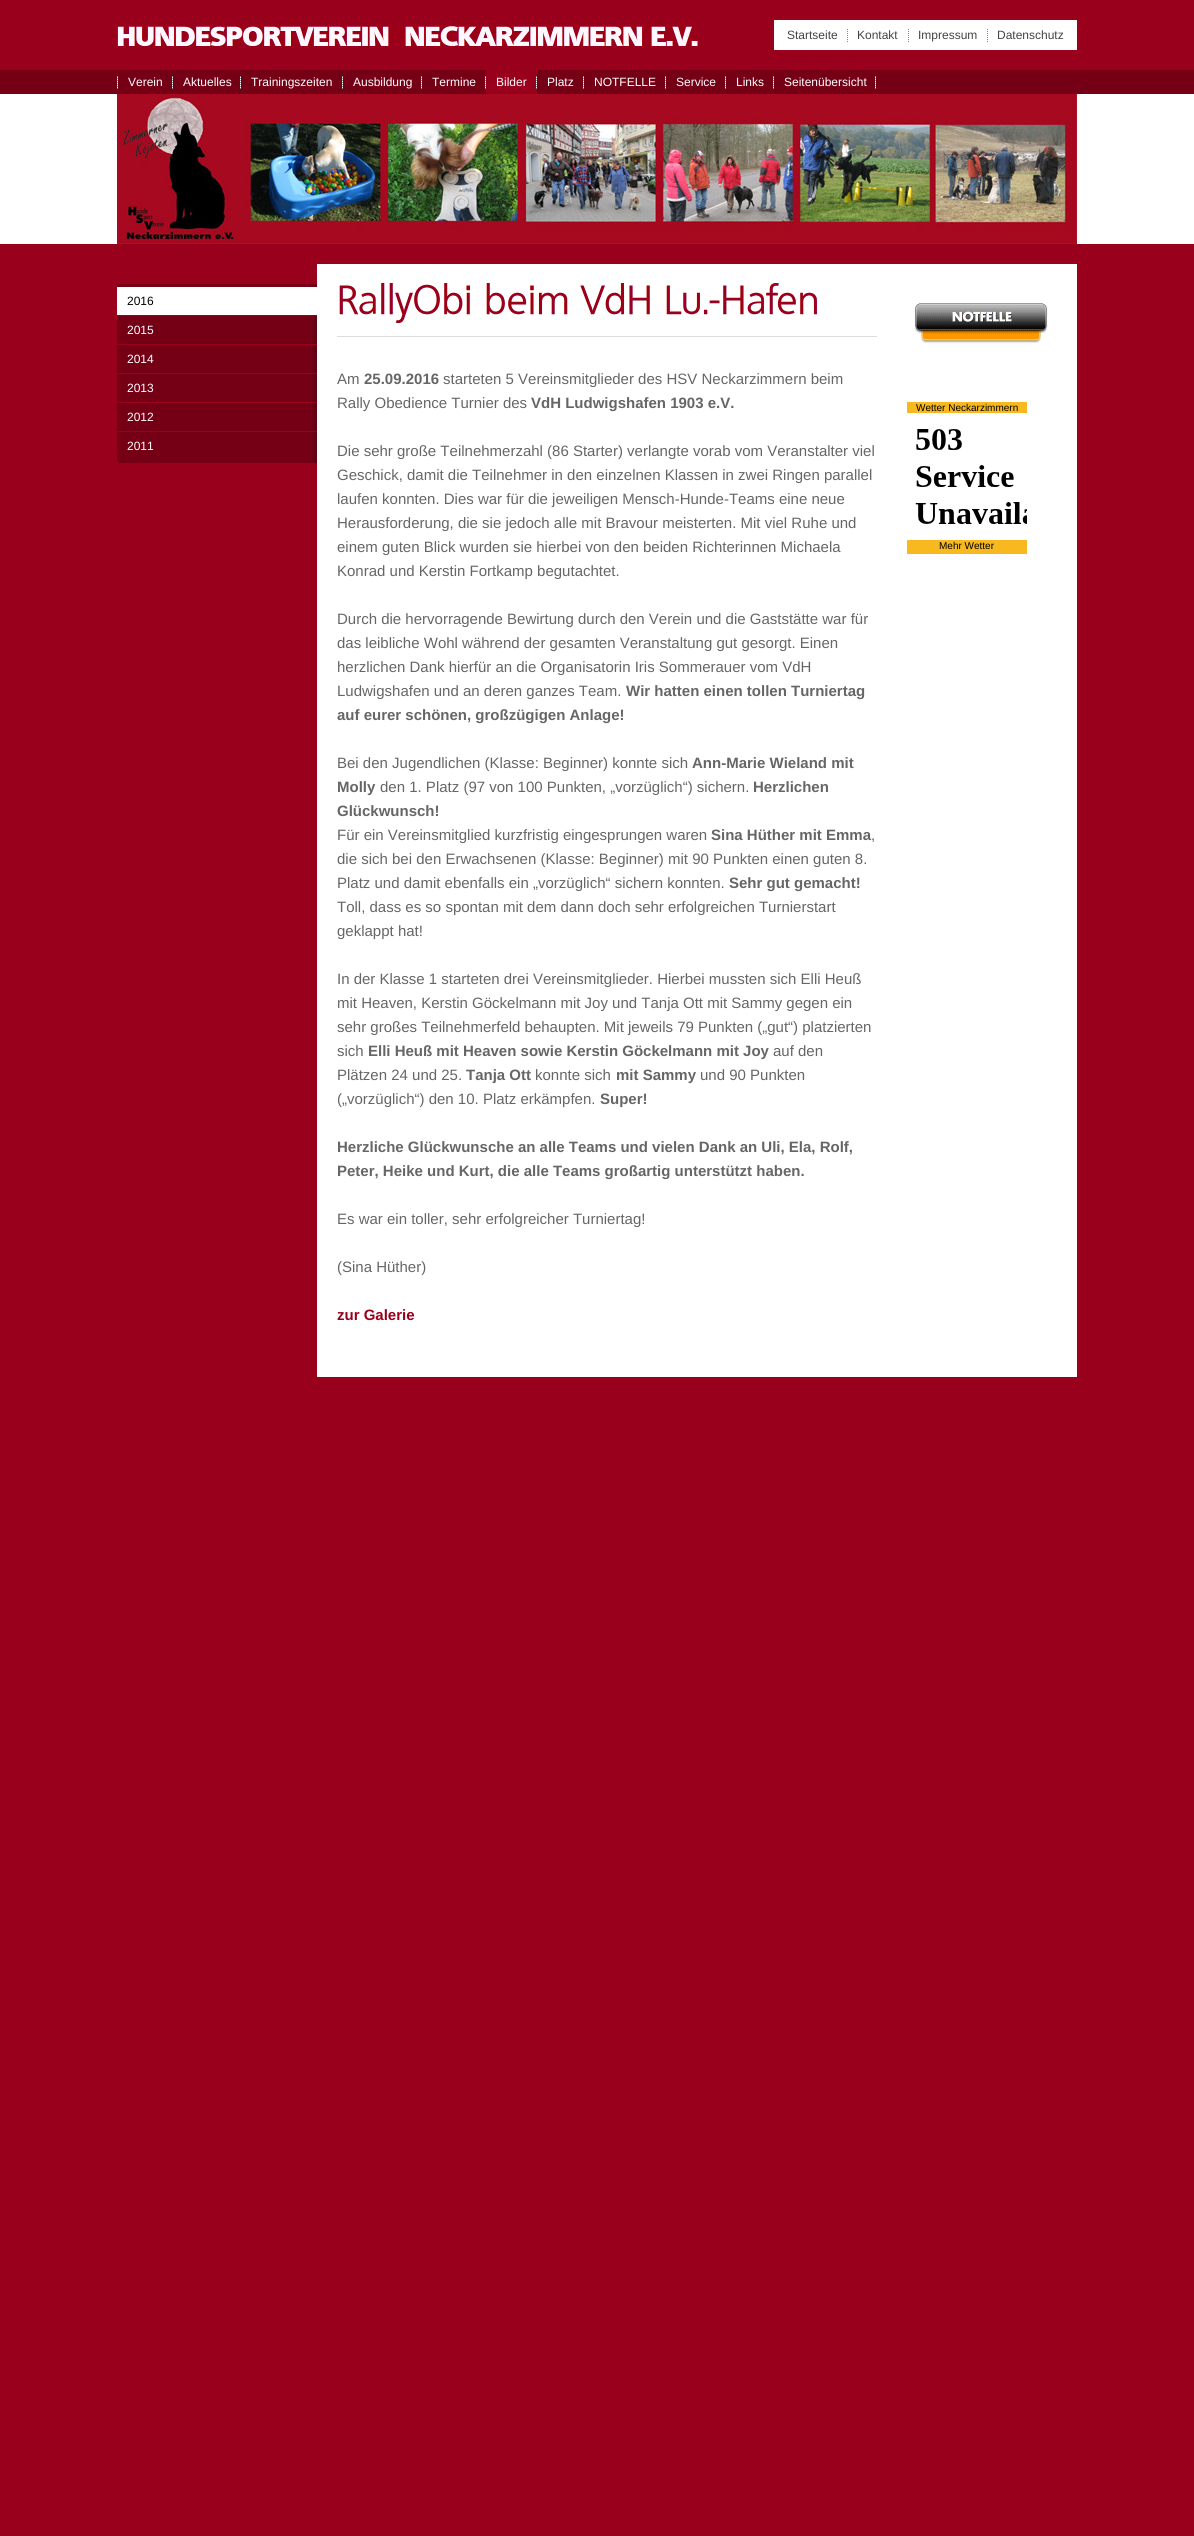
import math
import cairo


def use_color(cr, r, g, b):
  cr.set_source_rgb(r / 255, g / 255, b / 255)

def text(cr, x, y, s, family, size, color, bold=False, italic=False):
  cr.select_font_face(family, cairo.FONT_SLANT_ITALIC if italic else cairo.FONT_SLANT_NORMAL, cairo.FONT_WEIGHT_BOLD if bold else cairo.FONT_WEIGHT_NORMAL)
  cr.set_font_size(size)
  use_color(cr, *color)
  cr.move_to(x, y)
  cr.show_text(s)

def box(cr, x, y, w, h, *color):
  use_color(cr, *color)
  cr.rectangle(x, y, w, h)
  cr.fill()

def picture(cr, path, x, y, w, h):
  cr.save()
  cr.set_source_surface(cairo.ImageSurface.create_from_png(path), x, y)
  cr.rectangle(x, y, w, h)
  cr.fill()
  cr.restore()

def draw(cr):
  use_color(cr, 153, 0, 28)
  cr.paint()
  picture(cr, "img_01.png", 117, 26, 581, 20)
  box(cr, 774, 20, 303, 30, 255, 255, 255)
  picture(cr, "img_02.png", 847, 29, 1, 13)
  picture(cr, "img_02.png", 908, 29, 1, 13)
  picture(cr, "img_02.png", 987, 29, 1, 13)
  box(cr, 0, 70, 1194, 24, 117, 0, 22)
  picture(cr, "img_02.png", 117, 76, 1, 13)
  picture(cr, "img_02.png", 172, 76, 1, 13)
  picture(cr, "img_02.png", 240, 76, 1, 13)
  picture(cr, "img_02.png", 342, 76, 1, 13)
  picture(cr, "img_02.png", 421, 76, 1, 13)
  picture(cr, "img_02.png", 485, 76, 1, 13)
  box(cr, 486, 70, 51, 24, 153, 0, 28)
  picture(cr, "img_02.png", 536, 76, 1, 13)
  picture(cr, "img_02.png", 583, 76, 1, 13)
  picture(cr, "img_02.png", 665, 76, 1, 13)
  picture(cr, "img_02.png", 725, 76, 1, 13)
  picture(cr, "img_02.png", 773, 76, 1, 13)
  picture(cr, "img_02.png", 875, 76, 1, 13)
  box(cr, 0, 94, 1194, 150, 255, 255, 255)
  picture(cr, "img_03.png", 117, 94, 960, 150)
  box(cr, 317, 264, 760, 1113, 255, 255, 255)
  box(cr, 117, 284, 195, 179, 117, 0, 22)
  picture(cr, "img_04.png", 312, 284, 5, 179)
  picture(cr, "img_05.png", 117, 284, 2, 2)
  box(cr, 117, 287, 200, 28, 255, 255, 255)
  box(cr, 117, 315, 200, 1, 153, 0, 28)
  box(cr, 117, 344, 200, 1, 153, 0, 28)
  box(cr, 117, 373, 200, 1, 153, 0, 28)
  box(cr, 117, 402, 200, 1, 153, 0, 28)
  box(cr, 117, 431, 200, 1, 153, 0, 28)
  picture(cr, "img_06.png", 117, 461, 2, 2)
  picture(cr, "img_07.png", 339, 283, 479, 40)
  box(cr, 337, 336, 540, 1, 221, 221, 221)
  picture(cr, "img_08.png", 914, 303, 134, 41)
  box(cr, 907, 402, 120, 11, 248, 185, 32)
  picture(cr, "img_09.png", 915, 429, 112, 95)
  box(cr, 907, 540, 120, 14, 248, 185, 32)
  text(cr, 787, 39, "Startseite", "Liberation Sans", 12, (68, 68, 68))
  text(cr, 857, 39, "Kontakt", "Liberation Sans", 12, (68, 68, 68))
  text(cr, 918, 39, "Impressum", "Liberation Sans", 12, (68, 68, 68))
  text(cr, 997, 39, "Datenschutz", "Liberation Sans", 12, (68, 68, 68))
  text(cr, 128, 86, "Verein", "Liberation Sans", 12, (255, 255, 255))
  text(cr, 183, 86, "Aktuelles", "Liberation Sans", 12, (255, 255, 255))
  text(cr, 251, 86, "Trainingszeiten", "Liberation Sans", 12, (255, 255, 255))
  text(cr, 353, 86, "Ausbildung", "Liberation Sans", 12, (255, 255, 255))
  text(cr, 432, 86, "Termine", "Liberation Sans", 12, (255, 255, 255))
  text(cr, 496, 86, "Bilder", "Liberation Sans", 12, (255, 255, 255))
  text(cr, 547, 86, "Platz", "Liberation Sans", 12, (255, 255, 255))
  text(cr, 594, 86, "NOTFELLE", "Liberation Sans", 12, (255, 255, 255))
  text(cr, 676, 86, "Service", "Liberation Sans", 12, (255, 255, 255))
  text(cr, 736, 86, "Links", "Liberation Sans", 12, (255, 255, 255))
  text(cr, 784, 86, "Seitenübersicht", "Liberation Sans", 12, (255, 255, 255))
  text(cr, 127, 305, "2016", "Liberation Sans", 12, (0, 0, 0))
  text(cr, 127, 334, "2015", "Liberation Sans", 12, (255, 255, 255))
  text(cr, 127, 363, "2014", "Liberation Sans", 12, (255, 255, 255))
  text(cr, 127, 392, "2013", "Liberation Sans", 12, (255, 255, 255))
  text(cr, 127, 421, "2012", "Liberation Sans", 12, (255, 255, 255))
  text(cr, 127, 450, "2011", "Liberation Sans", 12, (255, 255, 255))
  text(cr, 337, 384, "Am", "Liberation Sans", 15, (102, 102, 102))
  text(cr, 364, 384, "25.09.2016", "Liberation Sans", 15, (102, 102, 102), bold=True)
  text(cr, 443, 384, "starteten 5 Vereinsmitglieder des HSV Neckarzimmern beim", "Liberation Sans", 15, (102, 102, 102))
  text(cr, 337, 408, "Rally Obedience Turnier des", "Liberation Sans", 15, (102, 102, 102))
  text(cr, 531, 408, "VdH Ludwigshafen 1903 e.V.", "Liberation Sans", 15, (102, 102, 102), bold=True)
  text(cr, 337, 456, "Die sehr große Teilnehmerzahl (86 Starter) verlangte vorab vom Veranstalter viel", "Liberation Sans", 15, (102, 102, 102))
  text(cr, 337, 480, "Geschick, damit die Teilnehmer in den einzelnen Klassen in zwei Ringen parallel", "Liberation Sans", 15, (102, 102, 102))
  text(cr, 337, 504, "laufen konnten. Dies war für die jeweiligen Mensch-Hunde-Teams eine neue", "Liberation Sans", 15, (102, 102, 102))
  text(cr, 337, 528, "Herausforderung, die sie jedoch alle mit Bravour meisterten. Mit viel Ruhe und", "Liberation Sans", 15, (102, 102, 102))
  text(cr, 337, 552, "einem guten Blick wurden sie hierbei von den beiden Richterinnen Michaela", "Liberation Sans", 15, (102, 102, 102))
  text(cr, 337, 576, "Konrad und Kerstin Fortkamp begutachtet.", "Liberation Sans", 15, (102, 102, 102))
  text(cr, 337, 624, "Durch die hervorragende Bewirtung durch den Verein und die Gaststätte war für", "Liberation Sans", 15, (102, 102, 102))
  text(cr, 337, 648, "das leibliche Wohl während der gesamten Veranstaltung gut gesorgt. Einen", "Liberation Sans", 15, (102, 102, 102))
  text(cr, 337, 672, "herzlichen Dank hierfür an die Organisatorin Iris Sommerauer vom VdH", "Liberation Sans", 15, (102, 102, 102))
  text(cr, 337, 696, "Ludwigshafen und an deren ganzes Team.", "Liberation Sans", 15, (102, 102, 102))
  text(cr, 626, 696, "Wir hatten einen tollen Turniertag", "Liberation Sans", 15, (102, 102, 102), bold=True)
  text(cr, 337, 720, "auf eurer schönen, großzügigen Anlage!", "Liberation Sans", 15, (102, 102, 102), bold=True)
  text(cr, 337, 768, "Bei den Jugendlichen (Klasse: Beginner) konnte sich", "Liberation Sans", 15, (102, 102, 102))
  text(cr, 692, 768, "Ann-Marie Wieland mit", "Liberation Sans", 15, (102, 102, 102), bold=True)
  text(cr, 337, 792, "Molly", "Liberation Sans", 15, (102, 102, 102), bold=True)
  text(cr, 380, 792, "den 1. Platz (97 von 100 Punkten, „vorzüglich“) sichern.", "Liberation Sans", 15, (102, 102, 102))
  text(cr, 753, 792, "Herzlichen", "Liberation Sans", 15, (102, 102, 102), bold=True)
  text(cr, 337, 816, "Glückwunsch!", "Liberation Sans", 15, (102, 102, 102), bold=True)
  text(cr, 337, 840, "Für ein Vereinsmitglied kurzfristig eingesprungen waren", "Liberation Sans", 15, (102, 102, 102))
  text(cr, 711, 840, "Sina Hüther mit Emma", "Liberation Sans", 15, (102, 102, 102), bold=True)
  text(cr, 871, 840, ",", "Liberation Sans", 15, (102, 102, 102))
  text(cr, 337, 864, "die sich bei den Erwachsenen (Klasse: Beginner) mit 90 Punkten einen guten 8.", "Liberation Sans", 15, (102, 102, 102))
  text(cr, 337, 888, "Platz und damit ebenfalls ein „vorzüglich“ sichern konnten.", "Liberation Sans", 15, (102, 102, 102))
  text(cr, 729, 888, "Sehr gut gemacht!", "Liberation Sans", 15, (102, 102, 102), bold=True)
  text(cr, 337, 912, "Toll, dass es so spontan mit dem dann doch sehr erfolgreichen Turnierstart", "Liberation Sans", 15, (102, 102, 102))
  text(cr, 337, 936, "geklappt hat!", "Liberation Sans", 15, (102, 102, 102))
  text(cr, 337, 984, "In der Klasse 1 starteten drei Vereinsmitglieder. Hierbei mussten sich Elli Heuß", "Liberation Sans", 15, (102, 102, 102))
  text(cr, 337, 1008, "mit Heaven, Kerstin Göckelmann mit Joy und Tanja Ott mit Sammy gegen ein", "Liberation Sans", 15, (102, 102, 102))
  text(cr, 337, 1032, "sehr großes Teilnehmerfeld behaupten. Mit jeweils 79 Punkten („gut“) platzierten", "Liberation Sans", 15, (102, 102, 102))
  text(cr, 337, 1056, "sich", "Liberation Sans", 15, (102, 102, 102))
  text(cr, 368, 1056, "Elli Heuß mit Heaven sowie Kerstin Göckelmann mit Joy", "Liberation Sans", 15, (102, 102, 102), bold=True)
  text(cr, 773, 1056, "auf den", "Liberation Sans", 15, (102, 102, 102))
  text(cr, 337, 1080, "Plätzen 24 und 25.", "Liberation Sans", 15, (102, 102, 102))
  text(cr, 466, 1080, "Tanja Ott", "Liberation Sans", 15, (102, 102, 102), bold=True)
  text(cr, 535, 1080, "konnte sich", "Liberation Sans", 15, (102, 102, 102))
  text(cr, 616, 1080, "mit Sammy", "Liberation Sans", 15, (102, 102, 102), bold=True)
  text(cr, 700, 1080, "und 90 Punkten", "Liberation Sans", 15, (102, 102, 102))
  text(cr, 337, 1104, "(„vorzüglich“) den 10. Platz erkämpfen.", "Liberation Sans", 15, (102, 102, 102))
  text(cr, 600, 1104, "Super!", "Liberation Sans", 15, (102, 102, 102), bold=True)
  text(cr, 337, 1152, "Herzliche Glückwunsche an alle Teams und vielen Dank an Uli, Ela, Rolf,", "Liberation Sans", 15, (102, 102, 102), bold=True)
  text(cr, 337, 1176, "Peter, Heike und Kurt, die alle Teams großartig unterstützt haben.", "Liberation Sans", 15, (102, 102, 102), bold=True)
  text(cr, 337, 1224, "Es war ein toller, sehr erfolgreicher Turniertag!", "Liberation Sans", 15, (102, 102, 102))
  text(cr, 337, 1272, "(Sina Hüther)", "Liberation Sans", 15, (102, 102, 102))
  text(cr, 337, 1320, "zur Galerie", "Liberation Sans", 15, (153, 0, 28), bold=True)
  text(cr, 916, 411, "Wetter Neckarzimmern", "Liberation Sans", 10, (0, 0, 0))
  text(cr, 939, 549, "Mehr Wetter", "Liberation Sans", 10, (0, 0, 0))


surface = cairo.ImageSurface(cairo.FORMAT_RGB24, 1194, 2536)
cr = cairo.Context(surface)
options = cairo.FontOptions()
options.set_hint_metrics(cairo.HINT_METRICS_OFF)
options.set_hint_style(cairo.HINT_STYLE_NONE)
cr.set_font_options(options)
cr.set_miter_limit(4)
draw(cr)
surface.write_to_png("out.png")
